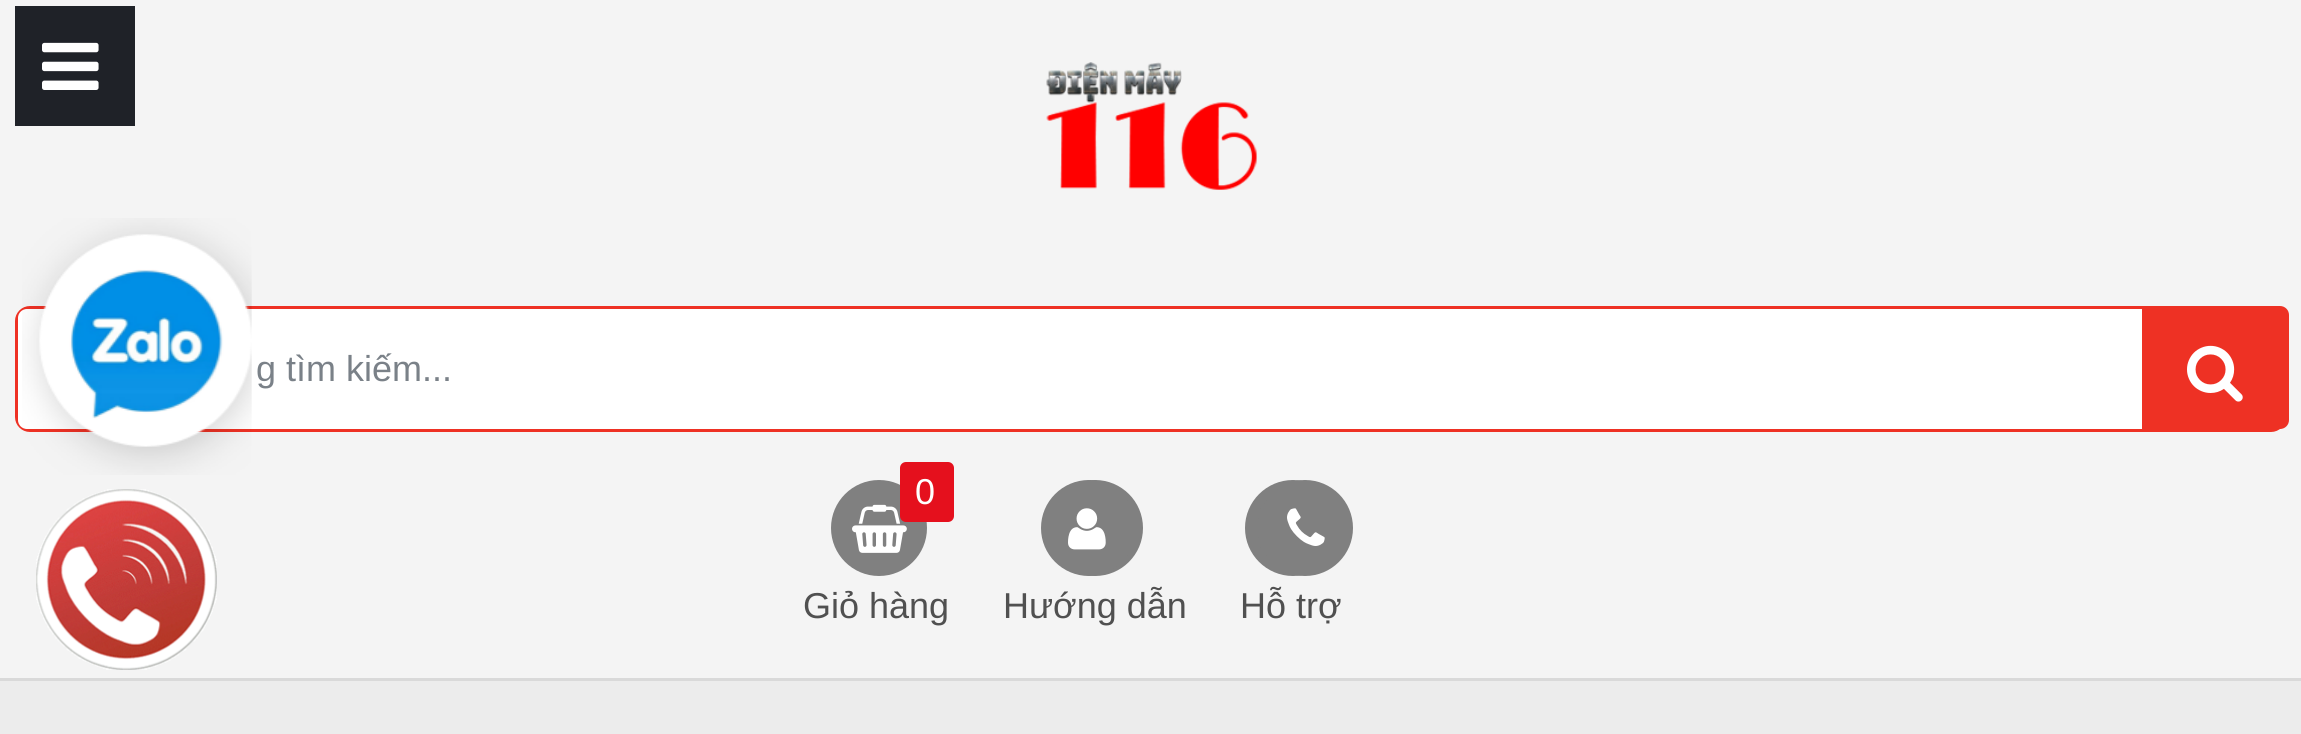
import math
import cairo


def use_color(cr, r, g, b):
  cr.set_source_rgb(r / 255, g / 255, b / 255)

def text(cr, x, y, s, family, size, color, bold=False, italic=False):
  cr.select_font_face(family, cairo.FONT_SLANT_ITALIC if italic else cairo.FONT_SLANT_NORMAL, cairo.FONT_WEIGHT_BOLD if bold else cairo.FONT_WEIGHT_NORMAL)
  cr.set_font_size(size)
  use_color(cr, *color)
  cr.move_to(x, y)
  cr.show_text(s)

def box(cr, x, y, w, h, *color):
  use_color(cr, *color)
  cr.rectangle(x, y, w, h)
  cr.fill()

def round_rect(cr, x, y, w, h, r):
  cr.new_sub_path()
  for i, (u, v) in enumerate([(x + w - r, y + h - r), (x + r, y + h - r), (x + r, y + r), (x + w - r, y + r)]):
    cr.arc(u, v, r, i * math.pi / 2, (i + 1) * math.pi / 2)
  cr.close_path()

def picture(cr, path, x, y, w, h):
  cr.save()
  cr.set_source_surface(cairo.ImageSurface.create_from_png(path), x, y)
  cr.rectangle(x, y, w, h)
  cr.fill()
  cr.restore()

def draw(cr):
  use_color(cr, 236, 236, 236)
  cr.paint()
  box(cr, 0, 0, 2301, 678, 244, 244, 244)
  use_color(cr, 255, 255, 255)
  round_rect(cr, 16.5, 307.5, 2268, 123, 13.5)
  cr.fill_preserve()
  use_color(cr, 238, 49, 36)
  cr.set_line_width(3)
  cr.stroke()
  use_color(cr, 255, 255, 255)
  cr.new_path()
  cr.move_to(27, 309)
  cr.line_to(1875, 309)
  cr.line_to(1875, 429)
  cr.line_to(27, 429)
  cr.curve_to(22, 429, 18, 425, 18, 420)
  cr.line_to(18, 318)
  cr.curve_to(18, 313, 22, 309, 27, 309)
  cr.close_path()
  cr.fill()
  picture(cr, "img_01.png", 22, 218, 230, 257)
  picture(cr, "img_02.png", 36, 489, 181, 181)
  box(cr, 0, 678, 2301, 3, 217, 217, 217)
  box(cr, 15, 6, 120, 120, 31, 34, 40)
  picture(cr, "img_03.png", 42, 42, 57, 48)
  picture(cr, "img_04.png", 1046, 62, 211, 128)
  use_color(cr, 238, 49, 36)
  cr.new_path()
  cr.move_to(2142, 306)
  cr.line_to(2280, 306)
  cr.curve_to(2285, 306, 2289, 310, 2289, 315)
  cr.line_to(2289, 420)
  cr.curve_to(2289, 425, 2285, 429, 2280, 429)
  cr.line_to(2142, 429)
  cr.close_path()
  cr.fill()
  picture(cr, "img_05.png", 2187, 345, 56, 57)
  use_color(cr, 128, 128, 128)
  cr.arc(879, 528, 48, 0, 2 * math.pi)
  cr.fill()
  picture(cr, "img_06.png", 852, 504, 55, 49)
  use_color(cr, 229, 16, 29)
  round_rect(cr, 900, 462, 54, 60, 6)
  cr.fill()
  use_color(cr, 128, 128, 128)
  cr.arc(1095, 528, 48, 0, 2 * math.pi)
  cr.fill()
  cr.arc(1089, 528, 48, 0, 2 * math.pi)
  cr.fill()
  picture(cr, "img_07.png", 1068, 508, 38, 42)
  cr.arc(1293, 528, 48, 0, 2 * math.pi)
  cr.fill()
  cr.arc(1305, 528, 48, 0, 2 * math.pi)
  cr.fill()
  picture(cr, "img_08.png", 1287, 508, 38, 38)
  text(cr, 256, 381, "g tìm kiếm...", "Liberation Sans", 36, (122, 129, 136))
  text(cr, 915, 504, "0", "Liberation Sans", 36, (255, 255, 255))
  text(cr, 803, 618, "Giỏ hàng", "Liberation Sans", 36, (80, 80, 80))
  text(cr, 1003, 618, "Hướng dẫn", "Liberation Sans", 36, (80, 80, 80))
  text(cr, 1240, 618, "Hỗ trợ", "Liberation Sans", 36, (80, 80, 80))


surface = cairo.ImageSurface(cairo.FORMAT_RGB24, 2301, 734)
cr = cairo.Context(surface)
options = cairo.FontOptions()
options.set_hint_metrics(cairo.HINT_METRICS_OFF)
options.set_hint_style(cairo.HINT_STYLE_NONE)
cr.set_font_options(options)
cr.set_miter_limit(4)
draw(cr)
surface.write_to_png("out.png")
